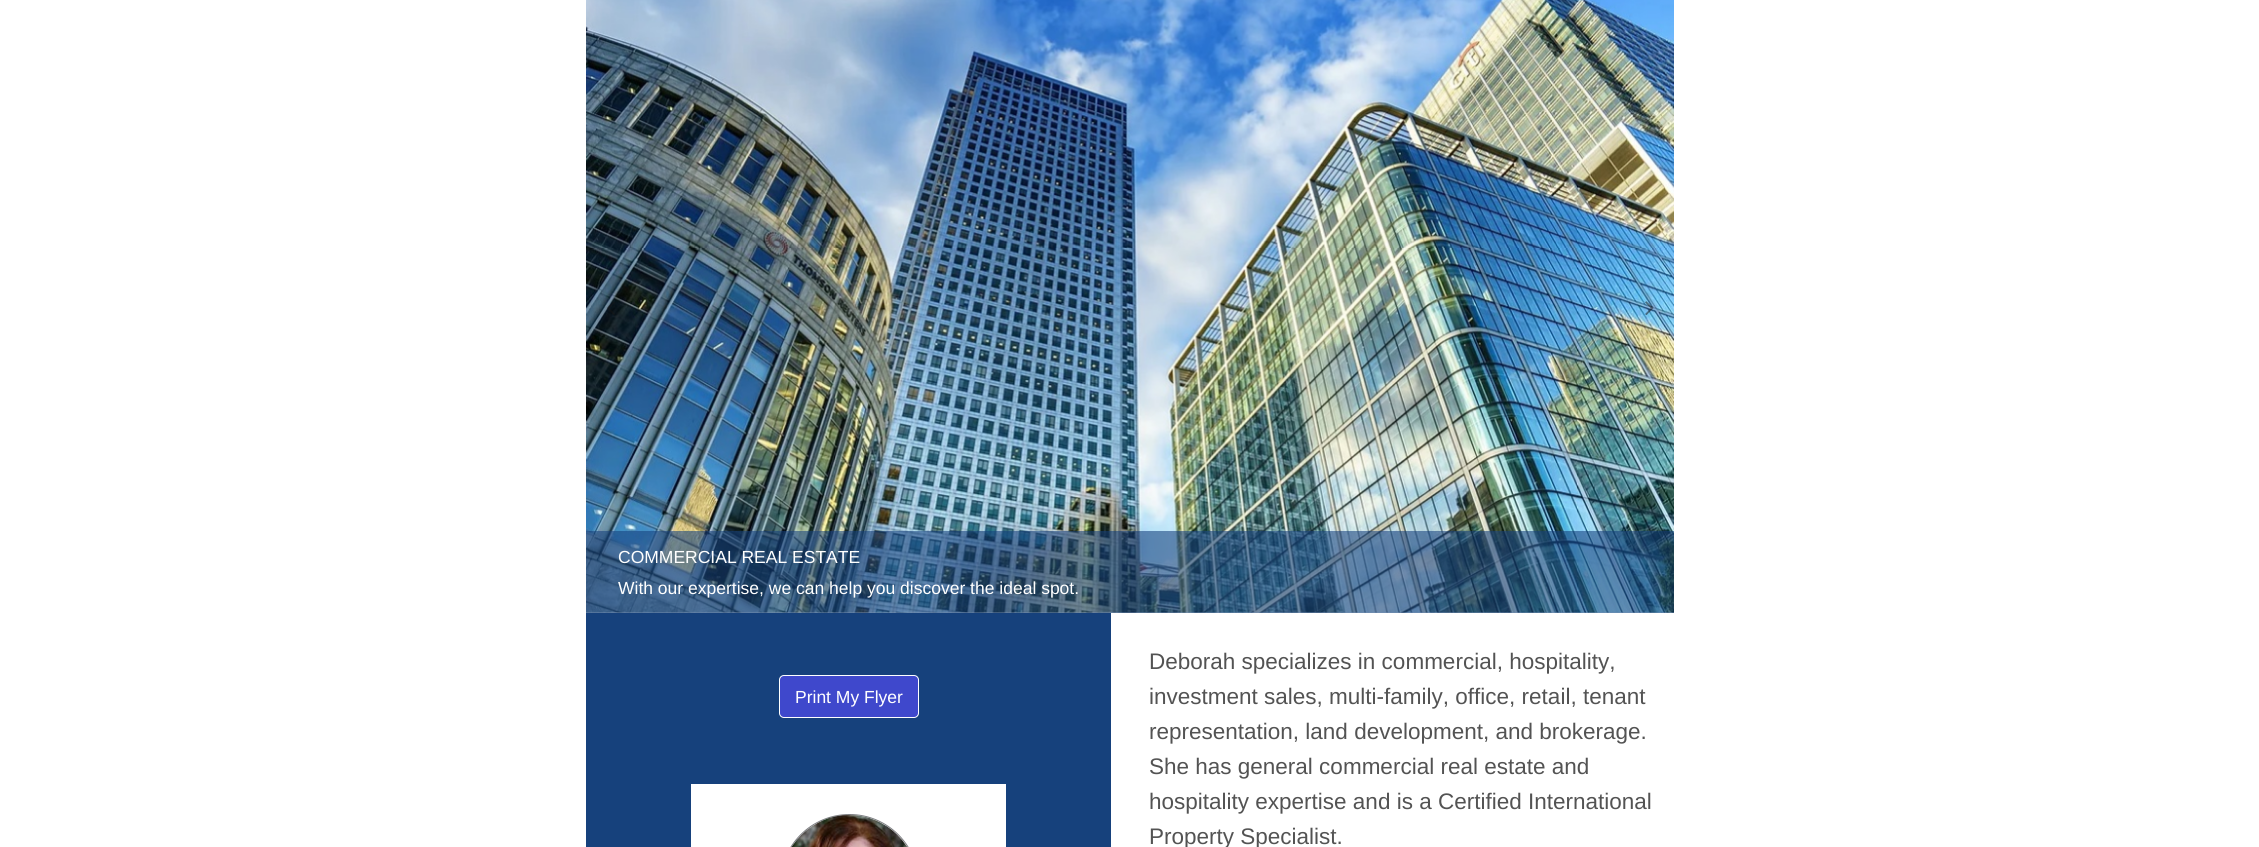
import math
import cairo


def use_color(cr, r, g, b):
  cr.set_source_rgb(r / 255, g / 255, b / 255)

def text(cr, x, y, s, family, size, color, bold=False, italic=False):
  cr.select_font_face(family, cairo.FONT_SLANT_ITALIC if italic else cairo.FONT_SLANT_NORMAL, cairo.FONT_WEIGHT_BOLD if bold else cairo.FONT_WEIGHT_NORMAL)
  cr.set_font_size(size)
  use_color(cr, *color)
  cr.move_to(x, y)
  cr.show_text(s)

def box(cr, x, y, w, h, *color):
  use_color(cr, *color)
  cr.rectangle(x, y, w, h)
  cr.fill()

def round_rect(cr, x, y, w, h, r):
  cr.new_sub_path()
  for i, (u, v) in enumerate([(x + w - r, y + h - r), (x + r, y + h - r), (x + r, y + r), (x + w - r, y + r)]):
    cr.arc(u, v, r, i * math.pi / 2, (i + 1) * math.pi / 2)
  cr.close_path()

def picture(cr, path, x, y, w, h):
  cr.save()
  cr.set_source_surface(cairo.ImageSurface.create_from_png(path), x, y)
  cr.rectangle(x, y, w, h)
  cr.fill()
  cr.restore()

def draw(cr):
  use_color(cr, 255, 255, 255)
  cr.paint()
  picture(cr, "img_03.png", 586, 0, 1088, 613)
  picture(cr, "img_01.png", 607, 302, 8, 13)
  picture(cr, "img_02.png", 1645, 301, 9, 15)
  cr.set_source_rgba(0.086, 0.255, 0.486, 0.58)
  cr.rectangle(586, 531, 1088, 82)
  cr.fill()
  box(cr, 586, 613, 525, 234, 22, 65, 124)
  use_color(cr, 63, 72, 204)
  round_rect(cr, 779.5, 675.5, 139, 42, 4.5)
  cr.fill_preserve()
  use_color(cr, 255, 255, 255)
  cr.set_line_width(1)
  cr.stroke()
  box(cr, 691, 784, 315, 63, 255, 255, 255)
  round_rect(cr, 780.5, 814.5, 138, 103, 69)
  use_color(cr, 126, 127, 131)
  cr.stroke()
  picture(cr, "img_04.png", 791, 815, 116, 32)
  text(cr, 618, 563, "COMMERCIAL REAL ESTATE", "Liberation Sans", 17.5, (255, 255, 255))
  text(cr, 618, 594, "With our expertise, we can help you discover the ideal spot.", "Liberation Sans", 17.5, (255, 255, 255))
  text(cr, 795, 703, "Print My Flyer", "Liberation Sans", 17.5, (255, 255, 255))
  text(cr, 1149, 669, "Deborah specializes in commercial, hospitality,", "Liberation Sans", 22.5, (83, 83, 83))
  text(cr, 1149, 704, "investment sales, multi-family, office, retail, tenant", "Liberation Sans", 22.5, (83, 83, 83))
  text(cr, 1149, 739, "representation, land development, and brokerage.", "Liberation Sans", 22.5, (83, 83, 83))
  text(cr, 1149, 774, "She has general commercial real estate and", "Liberation Sans", 22.5, (83, 83, 83))
  text(cr, 1149, 809, "hospitality expertise and is a Certified International", "Liberation Sans", 22.5, (83, 83, 83))
  text(cr, 1149, 844, "Property Specialist.", "Liberation Sans", 22.5, (83, 83, 83))


surface = cairo.ImageSurface(cairo.FORMAT_RGB24, 2259, 847)
cr = cairo.Context(surface)
options = cairo.FontOptions()
options.set_hint_metrics(cairo.HINT_METRICS_OFF)
options.set_hint_style(cairo.HINT_STYLE_NONE)
cr.set_font_options(options)
cr.set_miter_limit(4)
draw(cr)
surface.write_to_png("out.png")
